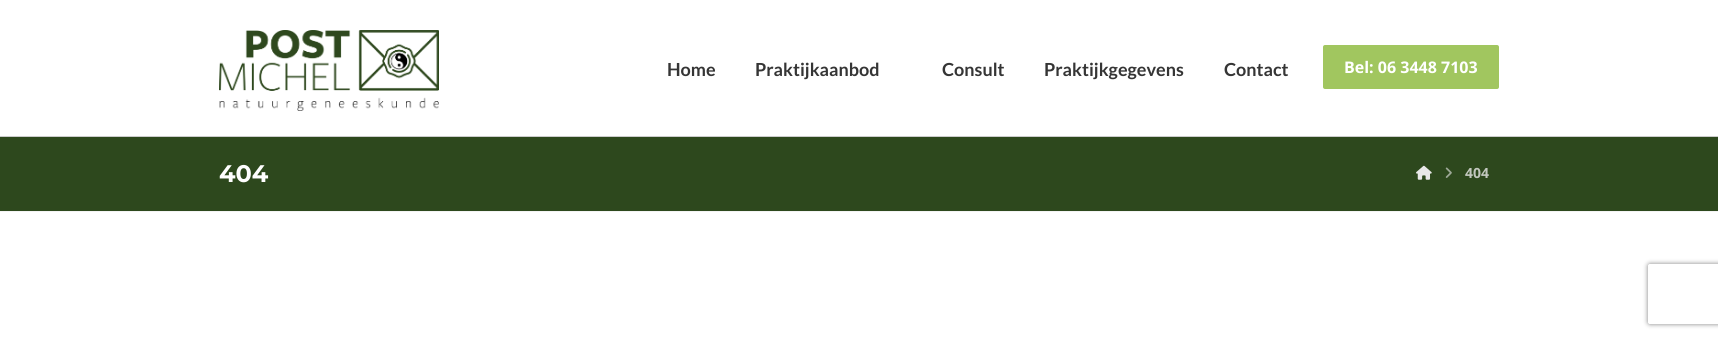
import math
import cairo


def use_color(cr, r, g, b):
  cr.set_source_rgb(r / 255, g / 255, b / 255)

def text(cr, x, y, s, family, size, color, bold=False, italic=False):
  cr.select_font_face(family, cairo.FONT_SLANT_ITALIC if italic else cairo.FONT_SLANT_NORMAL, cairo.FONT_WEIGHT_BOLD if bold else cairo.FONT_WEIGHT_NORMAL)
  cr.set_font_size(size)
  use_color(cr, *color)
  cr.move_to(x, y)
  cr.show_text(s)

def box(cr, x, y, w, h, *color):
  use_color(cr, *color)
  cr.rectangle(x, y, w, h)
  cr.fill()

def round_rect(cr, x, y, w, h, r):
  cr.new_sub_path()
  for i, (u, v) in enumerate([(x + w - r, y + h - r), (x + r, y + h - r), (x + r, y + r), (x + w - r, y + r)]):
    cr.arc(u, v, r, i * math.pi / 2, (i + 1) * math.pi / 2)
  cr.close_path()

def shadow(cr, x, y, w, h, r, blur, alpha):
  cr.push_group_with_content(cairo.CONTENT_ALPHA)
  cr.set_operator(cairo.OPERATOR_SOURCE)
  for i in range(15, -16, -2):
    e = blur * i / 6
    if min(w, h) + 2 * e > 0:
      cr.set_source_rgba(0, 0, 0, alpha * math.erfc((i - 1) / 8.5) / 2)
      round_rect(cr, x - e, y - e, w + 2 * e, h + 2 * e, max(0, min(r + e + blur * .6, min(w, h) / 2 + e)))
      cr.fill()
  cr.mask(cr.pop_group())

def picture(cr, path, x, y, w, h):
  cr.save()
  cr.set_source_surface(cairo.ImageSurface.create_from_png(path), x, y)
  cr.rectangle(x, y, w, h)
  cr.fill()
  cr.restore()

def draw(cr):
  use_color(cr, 255, 255, 255)
  cr.paint()
  box(cr, 0, 136, 1718, 1, 204, 204, 204)
  picture(cr, "img_01.png", 219, 30, 220, 81)
  use_color(cr, 161, 198, 95)
  round_rect(cr, 1323, 45, 176, 44, 2)
  cr.fill()
  box(cr, 0, 137, 1718, 74, 45, 72, 29)
  box(cr, 0, 211, 1718, 1, 244, 244, 244)
  picture(cr, "img_02.png", 1416, 165, 16, 15)
  picture(cr, "img_03.png", 1445, 167, 7, 11)
  cr.save()
  cr.set_fill_rule(cairo.FILL_RULE_EVEN_ODD)
  cr.new_path()
  cr.move_to(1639, 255)
  cr.line_to(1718, 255)
  cr.line_to(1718, 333)
  cr.line_to(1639, 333)
  cr.close_path()
  cr.move_to(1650, 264)
  cr.line_to(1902, 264)
  cr.curve_to(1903, 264, 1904, 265, 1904, 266)
  cr.line_to(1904, 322)
  cr.curve_to(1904, 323, 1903, 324, 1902, 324)
  cr.line_to(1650, 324)
  cr.curve_to(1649, 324, 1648, 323, 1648, 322)
  cr.line_to(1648, 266)
  cr.curve_to(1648, 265, 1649, 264, 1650, 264)
  cr.close_path()
  cr.clip()
  use_color(cr, 128, 128, 128)
  shadow(cr, 1648, 264, 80, 60, 2, 2.5, 1)
  cr.restore()
  text(cr, 667, 76, "Home", "Lato", 18, (53, 53, 53), bold=True)
  text(cr, 755, 76, "Praktijkaanbod", "Lato", 18, (53, 53, 53), bold=True)
  text(cr, 942, 76, "Consult", "Lato", 18, (53, 53, 53), bold=True)
  text(cr, 1044, 76, "Praktijkgegevens", "Lato", 18, (53, 53, 53), bold=True)
  text(cr, 1224, 76, "Contact", "Lato", 18, (53, 53, 53), bold=True)
  text(cr, 1344, 73, "Bel: 06 3448 7103", "Open Sans", 16, (255, 255, 255), bold=True)
  text(cr, 219, 182, "404", "Montserrat", 24, (255, 255, 255), bold=True)
  text(cr, 1465, 178, "404", "Open Sans", 14, (195, 200, 191), bold=True)


surface = cairo.ImageSurface(cairo.FORMAT_RGB24, 1718, 338)
cr = cairo.Context(surface)
options = cairo.FontOptions()
options.set_hint_metrics(cairo.HINT_METRICS_OFF)
options.set_hint_style(cairo.HINT_STYLE_NONE)
cr.set_font_options(options)
cr.set_miter_limit(4)
draw(cr)
surface.write_to_png("out.png")
